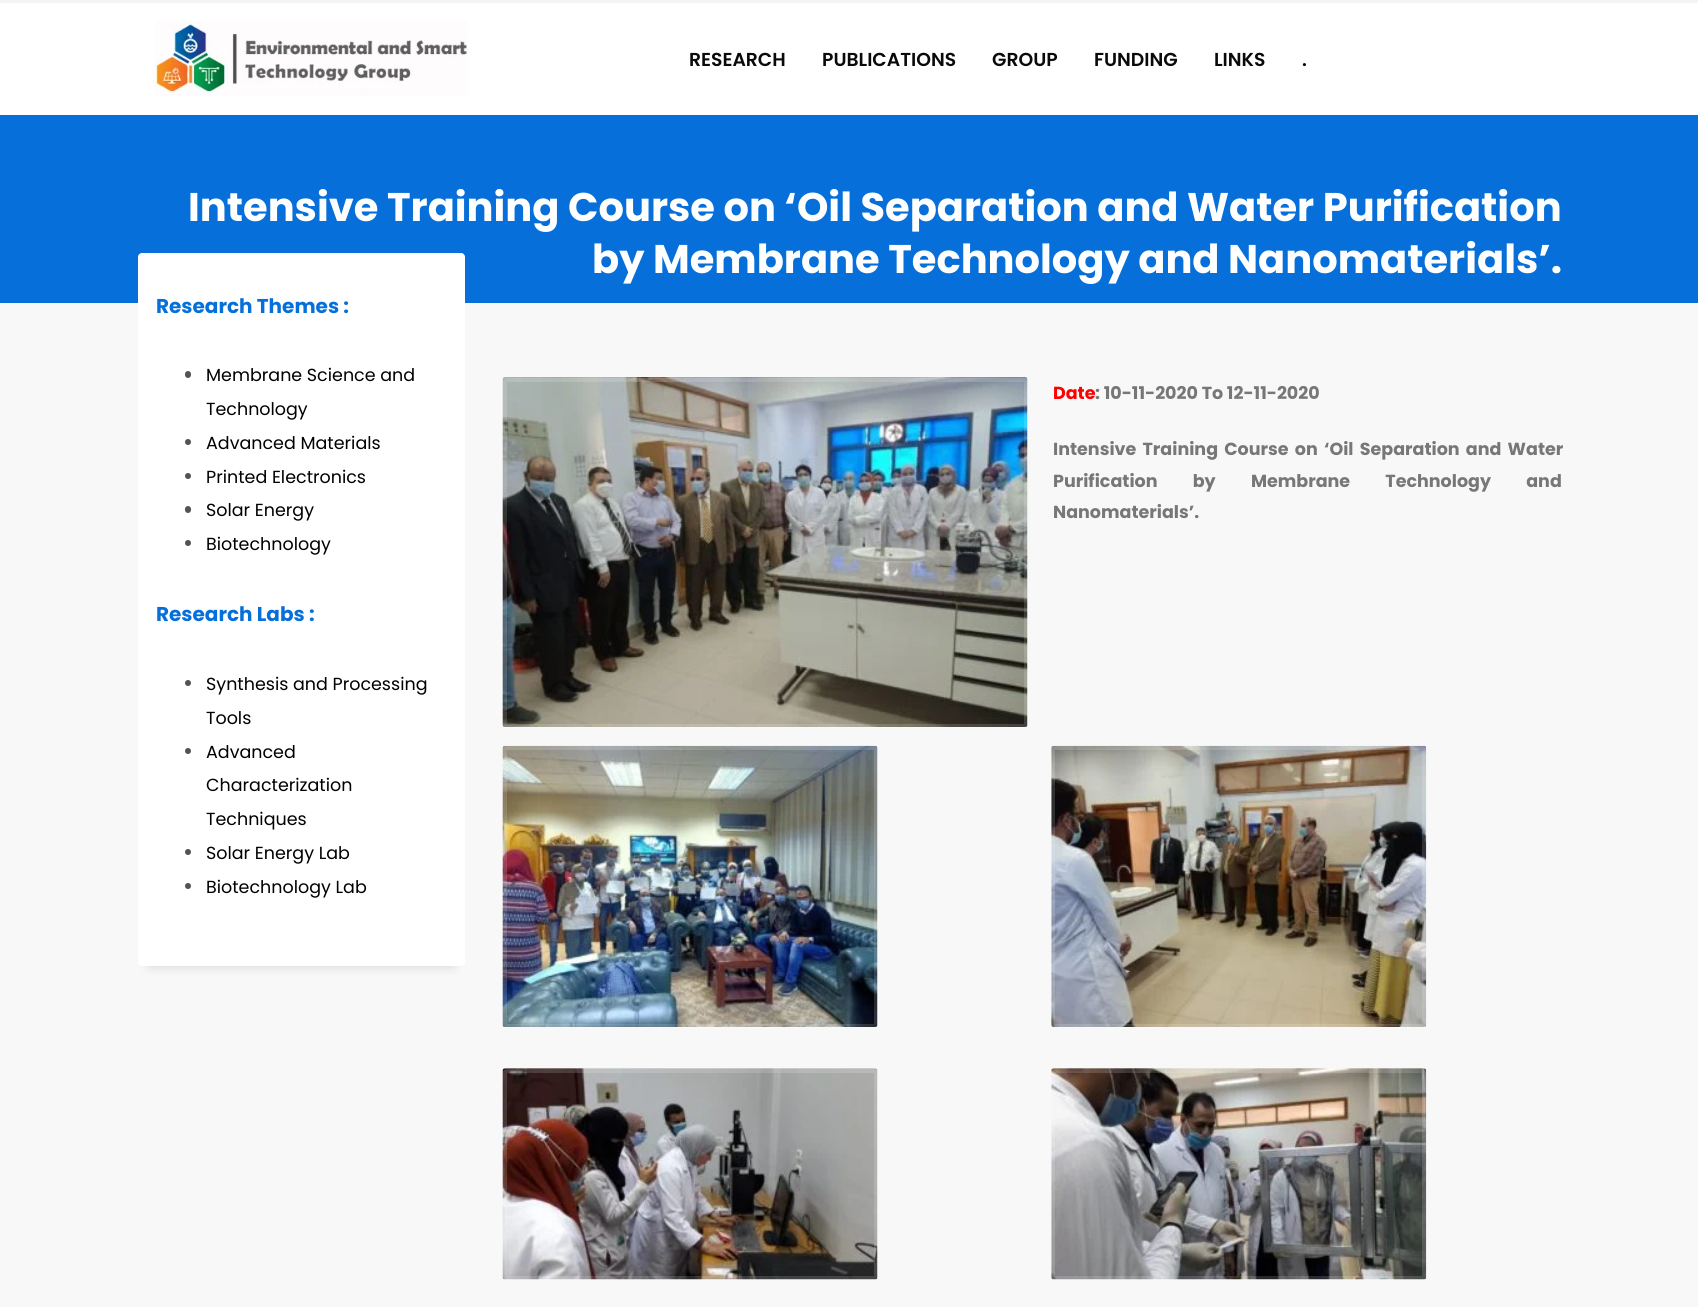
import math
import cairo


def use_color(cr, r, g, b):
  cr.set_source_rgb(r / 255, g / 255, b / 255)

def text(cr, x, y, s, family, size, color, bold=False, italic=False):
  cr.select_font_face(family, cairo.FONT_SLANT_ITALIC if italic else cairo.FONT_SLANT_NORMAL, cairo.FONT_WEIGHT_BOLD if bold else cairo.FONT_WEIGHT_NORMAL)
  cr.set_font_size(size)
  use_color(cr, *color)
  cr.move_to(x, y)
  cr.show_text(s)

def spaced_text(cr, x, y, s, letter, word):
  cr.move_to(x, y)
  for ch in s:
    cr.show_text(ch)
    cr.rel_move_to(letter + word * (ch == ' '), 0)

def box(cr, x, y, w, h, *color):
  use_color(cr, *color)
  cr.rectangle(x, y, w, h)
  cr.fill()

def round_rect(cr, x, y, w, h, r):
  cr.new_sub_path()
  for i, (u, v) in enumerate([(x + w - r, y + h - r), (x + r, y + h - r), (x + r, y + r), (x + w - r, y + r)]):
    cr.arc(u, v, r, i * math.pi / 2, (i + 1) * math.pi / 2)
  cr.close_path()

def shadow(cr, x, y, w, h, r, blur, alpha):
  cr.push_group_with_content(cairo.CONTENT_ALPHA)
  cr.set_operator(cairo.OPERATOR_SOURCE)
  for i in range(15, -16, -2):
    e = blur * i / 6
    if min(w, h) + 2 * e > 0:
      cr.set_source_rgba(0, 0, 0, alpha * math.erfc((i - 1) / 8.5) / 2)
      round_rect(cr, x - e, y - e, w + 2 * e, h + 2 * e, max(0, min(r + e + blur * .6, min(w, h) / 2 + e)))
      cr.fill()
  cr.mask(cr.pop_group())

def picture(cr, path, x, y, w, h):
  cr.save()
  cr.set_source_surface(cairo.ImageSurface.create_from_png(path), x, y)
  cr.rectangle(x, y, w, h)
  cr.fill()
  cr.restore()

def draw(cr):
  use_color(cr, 248, 248, 248)
  cr.paint()
  box(cr, 0, 3, 1698, 112, 255, 255, 255)
  box(cr, 0, 0, 1698, 3, 244, 244, 244)
  picture(cr, "img_01.png", 155, 21, 313, 75)
  box(cr, 0, 115, 1698, 188, 6, 111, 217)
  use_color(cr, 0, 0, 0)
  shadow(cr, 150, 278, 303, 688, 0, 6, 0.15)
  use_color(cr, 255, 255, 255)
  round_rect(cr, 138, 253, 327, 713, 4)
  cr.fill()
  use_color(cr, 83, 83, 83)
  round_rect(cr, 185, 371, 6, 7, 3)
  cr.fill()
  cr.arc(188, 442, 3, 0, 2 * math.pi)
  cr.fill()
  cr.arc(188, 476, 3, 0, 2 * math.pi)
  cr.fill()
  round_rect(cr, 185, 506, 6, 7, 3)
  cr.fill()
  cr.arc(188, 543, 3, 0, 2 * math.pi)
  cr.fill()
  cr.arc(188, 683, 3, 0, 2 * math.pi)
  cr.fill()
  cr.arc(188, 751, 3, 0, 2 * math.pi)
  cr.fill()
  cr.arc(188, 852, 3, 0, 2 * math.pi)
  cr.fill()
  cr.arc(188, 886, 3, 0, 2 * math.pi)
  cr.fill()
  picture(cr, "img_02.png", 502, 377, 526, 350)
  round_rect(cr, 505, 380, 521, 346, 2)
  cr.set_source_rgba(1, 1, 1, 0.15)
  cr.set_line_width(4)
  cr.stroke()
  picture(cr, "img_03.png", 502, 745, 376, 282)
  round_rect(cr, 505, 748, 371, 278, 2)
  cr.stroke()
  picture(cr, "img_04.png", 1051, 745, 376, 282)
  round_rect(cr, 1053, 748, 371, 278, 2)
  cr.stroke()
  picture(cr, "img_05.png", 502, 1068, 376, 212)
  round_rect(cr, 505, 1071, 371, 207, 2)
  cr.stroke()
  picture(cr, "img_06.png", 1051, 1068, 376, 212)
  round_rect(cr, 1053, 1071, 371, 207, 2)
  cr.stroke()
  text(cr, 689, 66, "RESEARCH", "Poppins SemiBold", 18.75, (10, 10, 10))
  text(cr, 822, 66, "PUBLICATIONS", "Poppins SemiBold", 18.75, (10, 10, 10))
  text(cr, 992, 66, "GROUP", "Poppins SemiBold", 18.75, (10, 10, 10))
  text(cr, 1094, 66, "FUNDING", "Poppins SemiBold", 18.75, (10, 10, 10))
  text(cr, 1214, 66, "LINKS", "Poppins SemiBold", 18.75, (10, 10, 10))
  text(cr, 1302, 66, ".", "Poppins SemiBold", 18.75, (10, 10, 10))
  text(cr, 188, 221, "Intensive Training Course on ‘Oil Separation and Water Purification", "Poppins", 40, (255, 255, 255), bold=True)
  text(cr, 592, 273, "by Membrane Technology and Nanomaterials’.", "Poppins", 40, (255, 255, 255), bold=True)
  text(cr, 156, 313, "Research Themes :", "Poppins", 20, (6, 111, 217), bold=True)
  text(cr, 206, 381, "Membrane Science and", "Poppins", 17.5, (0, 0, 0))
  text(cr, 206, 415, "Technology", "Poppins", 17.5, (0, 0, 0))
  text(cr, 206, 449, "Advanced Materials", "Poppins", 17.5, (0, 0, 0))
  text(cr, 206, 483, "Printed Electronics", "Poppins", 17.5, (0, 0, 0))
  text(cr, 206, 516, "Solar Energy", "Poppins", 17.5, (0, 0, 0))
  text(cr, 206, 550, "Biotechnology", "Poppins", 17.5, (0, 0, 0))
  text(cr, 156, 621, "Research Labs :", "Poppins", 20, (6, 111, 217), bold=True)
  text(cr, 206, 690, "Synthesis and Processing", "Poppins", 17.5, (0, 0, 0))
  text(cr, 206, 724, "Tools", "Poppins", 17.5, (0, 0, 0))
  text(cr, 206, 758, "Advanced", "Poppins", 17.5, (0, 0, 0))
  text(cr, 206, 791, "Characterization", "Poppins", 17.5, (0, 0, 0))
  text(cr, 206, 825, "Techniques", "Poppins", 17.5, (0, 0, 0))
  text(cr, 206, 859, "Solar Energy Lab", "Poppins", 17.5, (0, 0, 0))
  text(cr, 206, 893, "Biotechnology Lab", "Poppins", 17.5, (0, 0, 0))
  text(cr, 1053, 399, "Date", "Poppins", 17.5, (255, 0, 0), bold=True)
  text(cr, 1095, 399, ": 10-11-2020 To 12-11-2020", "Poppins", 17.5, (119, 119, 119), bold=True)
  spaced_text(cr, 1053, 455, "Intensive Training Course on ‘Oil Separation and Water", 0, 2.5)
  spaced_text(cr, 1053, 487, "Purification by Membrane Technology and", 0, 31.5)
  text(cr, 1053, 518, "Nanomaterials’.", "Poppins", 17.5, (119, 119, 119), bold=True)


surface = cairo.ImageSurface(cairo.FORMAT_RGB24, 1698, 1307)
cr = cairo.Context(surface)
options = cairo.FontOptions()
options.set_hint_metrics(cairo.HINT_METRICS_OFF)
options.set_hint_style(cairo.HINT_STYLE_NONE)
cr.set_font_options(options)
cr.set_miter_limit(4)
draw(cr)
surface.write_to_png("out.png")
